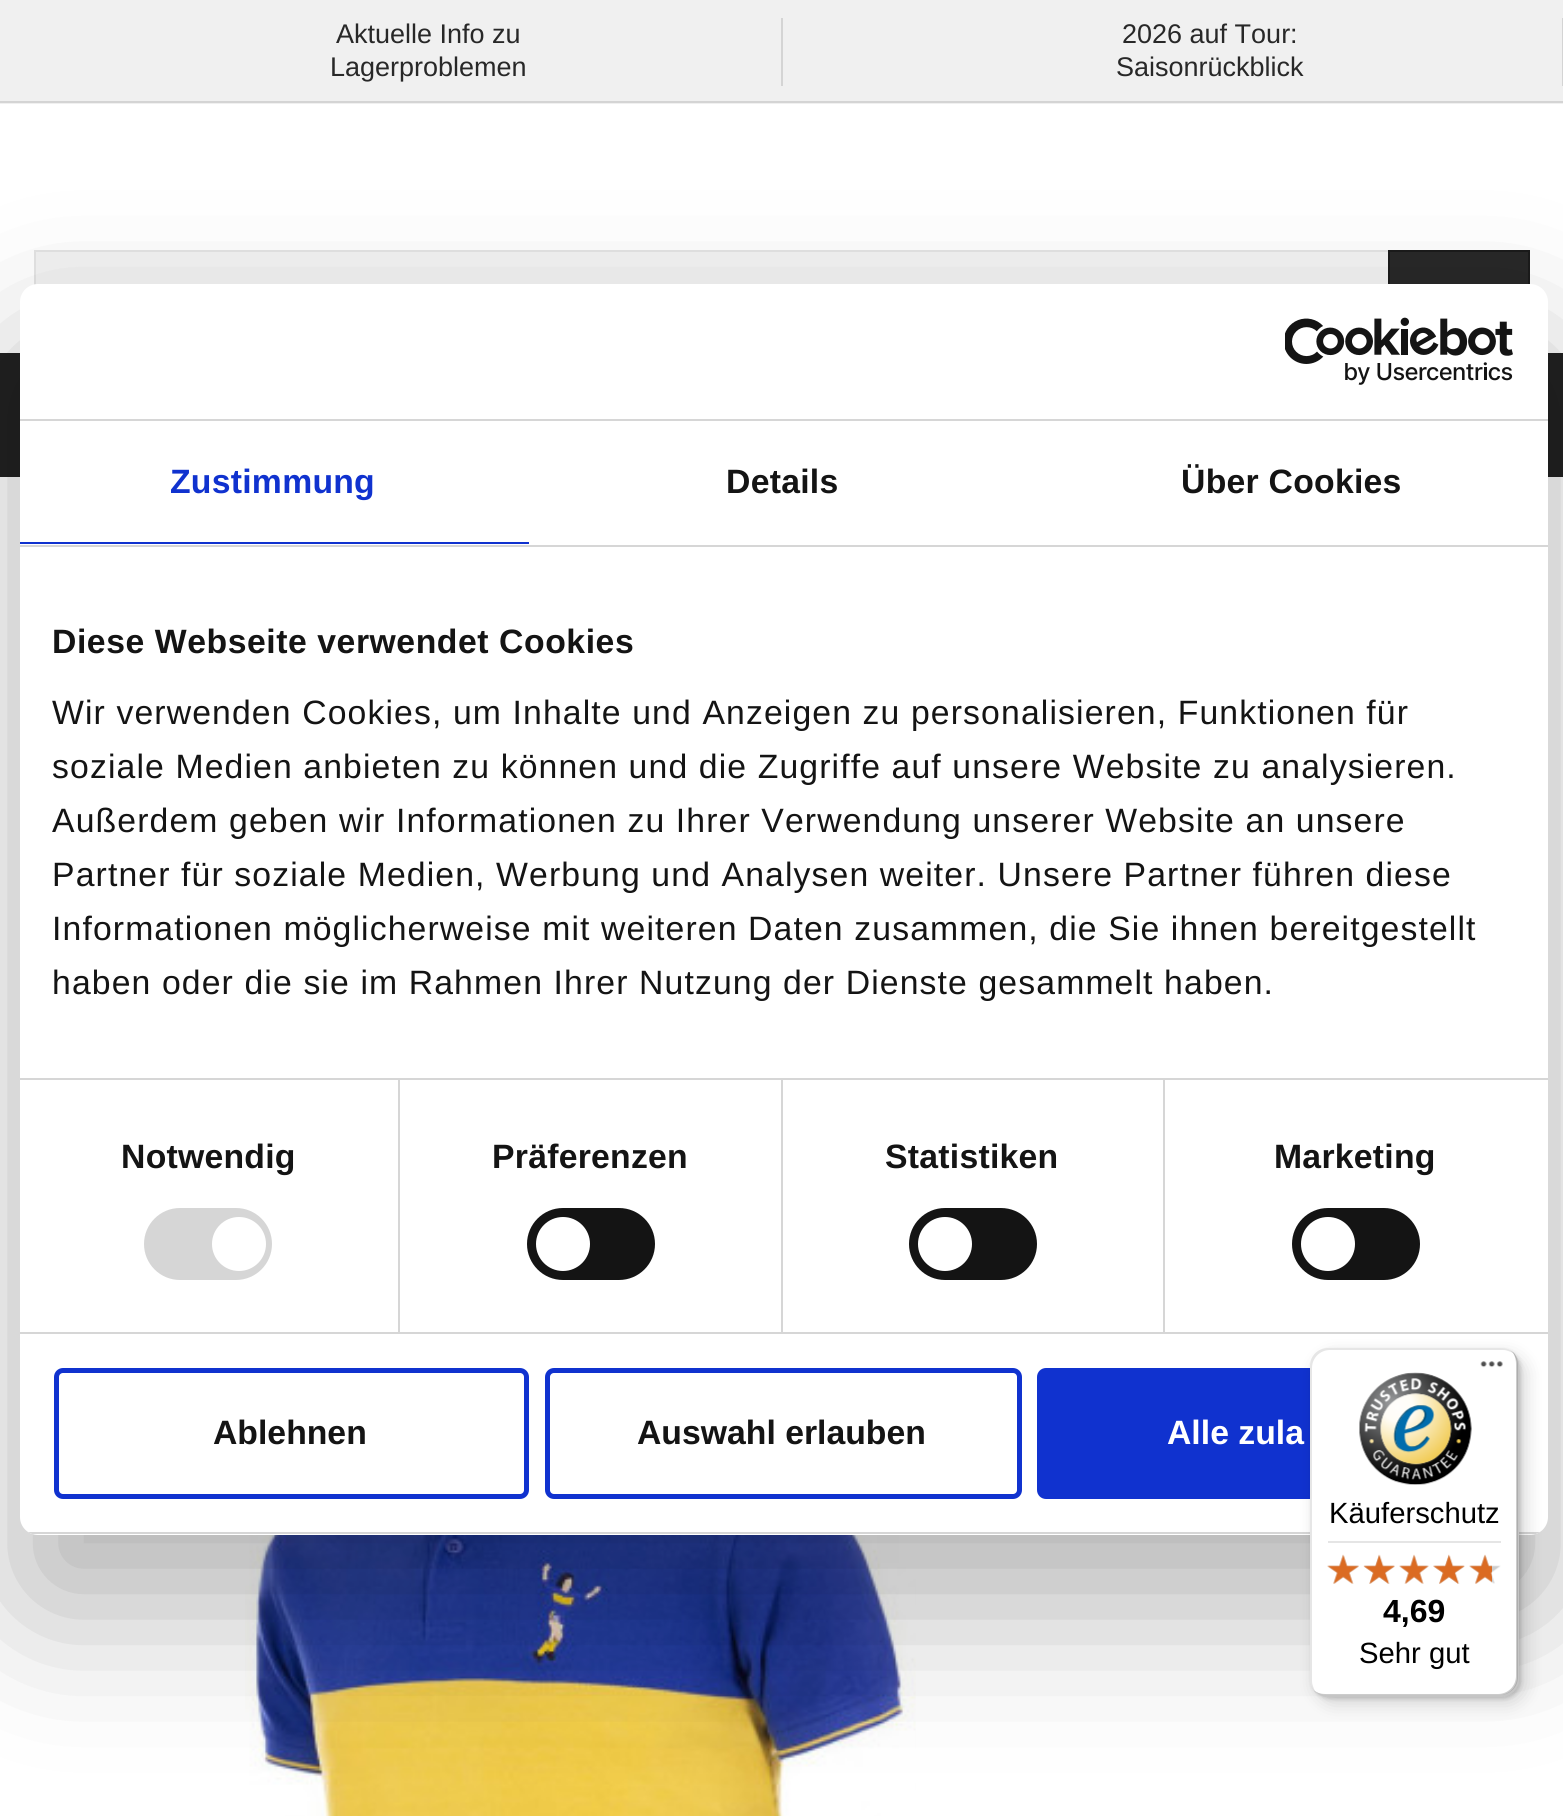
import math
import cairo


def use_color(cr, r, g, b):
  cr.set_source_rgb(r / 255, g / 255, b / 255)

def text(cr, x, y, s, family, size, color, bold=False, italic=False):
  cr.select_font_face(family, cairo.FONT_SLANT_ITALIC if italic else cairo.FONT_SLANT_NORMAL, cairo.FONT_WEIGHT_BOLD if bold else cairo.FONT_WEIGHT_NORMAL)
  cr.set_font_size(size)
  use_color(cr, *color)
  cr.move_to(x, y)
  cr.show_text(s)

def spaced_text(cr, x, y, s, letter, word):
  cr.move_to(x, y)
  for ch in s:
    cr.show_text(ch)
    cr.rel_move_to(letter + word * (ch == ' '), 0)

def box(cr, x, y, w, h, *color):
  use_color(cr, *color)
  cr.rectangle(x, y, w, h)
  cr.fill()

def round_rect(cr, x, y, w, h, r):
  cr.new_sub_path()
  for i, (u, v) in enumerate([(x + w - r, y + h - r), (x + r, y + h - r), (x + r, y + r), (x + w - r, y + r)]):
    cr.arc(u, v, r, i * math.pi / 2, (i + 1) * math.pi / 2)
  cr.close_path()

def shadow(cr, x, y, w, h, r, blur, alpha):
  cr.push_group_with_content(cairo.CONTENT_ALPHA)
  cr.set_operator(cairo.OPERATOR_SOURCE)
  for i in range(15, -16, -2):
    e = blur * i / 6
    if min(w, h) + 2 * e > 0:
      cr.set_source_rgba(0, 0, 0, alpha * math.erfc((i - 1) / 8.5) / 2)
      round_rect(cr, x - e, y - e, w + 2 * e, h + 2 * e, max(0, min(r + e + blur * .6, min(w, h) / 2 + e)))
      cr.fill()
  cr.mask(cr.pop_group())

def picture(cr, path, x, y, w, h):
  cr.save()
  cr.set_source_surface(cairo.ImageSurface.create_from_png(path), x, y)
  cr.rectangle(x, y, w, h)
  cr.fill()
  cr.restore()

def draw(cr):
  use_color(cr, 255, 255, 255)
  cr.paint()
  box(cr, 0, 0, 1563, 104, 240, 240, 240)
  box(cr, 0, 101, 1563, 2, 212, 212, 212)
  box(cr, 781, 18, 2, 68, 212, 212, 212)
  box(cr, 1562, 18, 1, 68, 212, 212, 212)
  box(cr, 36, 252, 1352, 33, 243, 243, 243)
  cr.rectangle(35, 251, 1355, 65)
  use_color(cr, 228, 228, 228)
  cr.stroke()
  box(cr, 1390, 252, 138, 32, 40, 40, 40)
  cr.rectangle(1389, 251, 140, 68)
  use_color(cr, 27, 27, 27)
  cr.stroke()
  box(cr, 0, 353, 1563, 124, 34, 34, 34)
  picture(cr, "img_02.png", 245, 1535, 671, 281)
  use_color(cr, 0, 0, 0)
  shadow(cr, 20, 356, 1528, 1251, 18, 76.5, 0.3)
  use_color(cr, 255, 255, 255)
  round_rect(cr, 20, 284, 1528, 1251, 18)
  cr.fill()
  box(cr, 20, 419, 1528, 2, 214, 214, 214)
  picture(cr, "img_01.png", 1285, 317, 228, 68)
  box(cr, 20, 545, 1528, 2, 214, 214, 214)
  box(cr, 20, 542, 509, 2, 16, 50, 207)
  box(cr, 20, 1078, 1528, 2, 214, 214, 214)
  box(cr, 20, 1332, 1528, 2, 214, 214, 214)
  box(cr, 398, 1080, 2, 252, 214, 214, 214)
  round_rect(cr, 144, 1208, 128, 72, 36)
  cr.fill()
  use_color(cr, 255, 255, 255)
  cr.arc(239, 1244, 27, 0, 2 * math.pi)
  cr.fill()
  box(cr, 781, 1080, 2, 252, 214, 214, 214)
  use_color(cr, 20, 20, 20)
  round_rect(cr, 527, 1208, 128, 72, 36)
  cr.fill()
  use_color(cr, 255, 255, 255)
  cr.arc(563, 1244, 27, 0, 2 * math.pi)
  cr.fill()
  box(cr, 1163, 1080, 2, 252, 214, 214, 214)
  use_color(cr, 20, 20, 20)
  round_rect(cr, 909, 1208, 128, 72, 36)
  cr.fill()
  use_color(cr, 255, 255, 255)
  cr.arc(945, 1244, 27, 0, 2 * math.pi)
  cr.fill()
  use_color(cr, 20, 20, 20)
  round_rect(cr, 1292, 1208, 128, 72, 36)
  cr.fill()
  use_color(cr, 255, 255, 255)
  cr.arc(1328, 1244, 27, 0, 2 * math.pi)
  cr.fill()
  cr.save()
  round_rect(cr, 20, 284, 1528, 1251, 18)
  cr.clip()
  box(cr, 20, 1532, 1528, 2, 214, 214, 214)
  cr.restore()
  round_rect(cr, 56.5, 1370.5, 470, 126, 6.5)
  use_color(cr, 16, 50, 207)
  cr.set_line_width(5)
  cr.stroke()
  round_rect(cr, 547.5, 1370.5, 472, 126, 6.5)
  cr.stroke()
  round_rect(cr, 1039.5, 1370.5, 472, 126, 6.5)
  cr.fill_preserve()
  cr.stroke()
  use_color(cr, 0, 0, 0)
  shadow(cr, 1316, 1355, 210, 348, 18, 9, 0.15)
  shadow(cr, 1312, 1350, 209, 349, 18, 2, 0.15)
  use_color(cr, 255, 255, 255)
  round_rect(cr, 1310, 1348, 209, 349, 18)
  cr.fill()
  cr.set_source_rgba(0, 0, 0, 0.1)
  cr.new_path()
  cr.move_to(1330, 1350)
  cr.line_to(1503, 1350)
  cr.curve_to(1507, 1350, 1511, 1352, 1515, 1354)
  cr.curve_to(1511, 1350, 1506, 1348, 1501, 1348)
  cr.line_to(1328, 1348)
  cr.curve_to(1318, 1348, 1310, 1356, 1310, 1366)
  cr.line_to(1310, 1679)
  cr.curve_to(1310, 1684, 1312, 1689, 1316, 1693)
  cr.curve_to(1314, 1689, 1312, 1685, 1312, 1681)
  cr.line_to(1312, 1368)
  cr.curve_to(1312, 1358, 1320, 1350, 1330, 1350)
  cr.close_path()
  cr.fill()
  cr.set_source_rgba(0, 0, 0, 0.2)
  cr.new_path()
  cr.move_to(1314, 1690)
  cr.curve_to(1317, 1694, 1322, 1697, 1328, 1697)
  cr.line_to(1501, 1697)
  cr.curve_to(1511, 1697, 1519, 1689, 1519, 1679)
  cr.line_to(1519, 1366)
  cr.curve_to(1519, 1359, 1515, 1353, 1510, 1350)
  cr.curve_to(1514, 1353, 1516, 1358, 1516, 1364)
  cr.line_to(1516, 1676)
  cr.curve_to(1516, 1686, 1508, 1694, 1498, 1694)
  cr.line_to(1325, 1694)
  cr.curve_to(1321, 1694, 1317, 1693, 1314, 1690)
  cr.close_path()
  cr.fill()
  cr.set_source_rgba(0.196, 0.196, 0.196, 0.2)
  cr.new_path()
  cr.move_to(1314, 1691)
  cr.curve_to(1318, 1695, 1323, 1697, 1328, 1697)
  cr.line_to(1501, 1697)
  cr.curve_to(1511, 1697, 1519, 1689, 1519, 1679)
  cr.line_to(1519, 1366)
  cr.curve_to(1519, 1361, 1517, 1356, 1513, 1352)
  cr.curve_to(1515, 1356, 1517, 1360, 1517, 1364)
  cr.line_to(1517, 1677)
  cr.curve_to(1517, 1687, 1509, 1695, 1499, 1695)
  cr.line_to(1326, 1695)
  cr.curve_to(1322, 1695, 1318, 1693, 1314, 1691)
  cr.close_path()
  cr.fill()
  cr.set_source_rgba(1, 1, 1, 0.3)
  cr.new_path()
  cr.move_to(1314, 1691)
  cr.curve_to(1318, 1695, 1323, 1697, 1328, 1697)
  cr.line_to(1501, 1697)
  cr.curve_to(1511, 1697, 1519, 1689, 1519, 1679)
  cr.line_to(1519, 1366)
  cr.curve_to(1519, 1361, 1517, 1356, 1514, 1353)
  cr.curve_to(1516, 1356, 1518, 1360, 1518, 1365)
  cr.line_to(1518, 1677)
  cr.curve_to(1518, 1687, 1510, 1695, 1500, 1695)
  cr.line_to(1326, 1695)
  cr.curve_to(1322, 1695, 1318, 1693, 1314, 1691)
  cr.close_path()
  cr.fill()
  picture(cr, "img_03.png", 1480, 1361, 23, 7)
  picture(cr, "img_04.png", 1359, 1372, 113, 113)
  box(cr, 1328, 1541, 173, 2, 229, 229, 229)
  picture(cr, "img_10.png", 1327, 1555, 32, 29)
  picture(cr, "img_05.png", 1327, 1554, 32, 30)
  picture(cr, "img_11.png", 1364, 1555, 31, 29)
  picture(cr, "img_06.png", 1363, 1554, 32, 30)
  picture(cr, "img_12.png", 1399, 1555, 30, 29)
  picture(cr, "img_07.png", 1399, 1554, 30, 30)
  picture(cr, "img_13.png", 1433, 1555, 32, 29)
  picture(cr, "img_08.png", 1433, 1554, 32, 30)
  picture(cr, "img_14.png", 1469, 1555, 32, 29)
  picture(cr, "img_09.png", 1469, 1554, 23, 30)
  text(cr, 336, 43, "Aktuelle Info zu", "Liberation Sans", 27, (40, 40, 40))
  text(cr, 330, 76, "Lagerproblemen", "Liberation Sans", 27, (40, 40, 40))
  text(cr, 1122, 43, "2026 auf Tour:", "Liberation Sans", 27, (40, 40, 40))
  text(cr, 1116, 76, "Saisonrückblick", "Liberation Sans", 27, (40, 40, 40))
  cr.select_font_face("Liberation Sans", cairo.FONT_SLANT_NORMAL, cairo.FONT_WEIGHT_BOLD)
  cr.set_font_size(33.75)
  use_color(cr, 16, 50, 207)
  spaced_text(cr, 170, 493, "Zustimmung", 0.25, 0)
  use_color(cr, 20, 20, 20)
  spaced_text(cr, 726, 493, "Details", 0.25, 0)
  spaced_text(cr, 1181, 493, "Über Cookies", 0.25, 0)
  spaced_text(cr, 52, 653, "Diese Webseite verwendet Cookies", 0.55, 0)
  cr.select_font_face("Liberation Sans")
  spaced_text(cr, 52, 724, "Wir verwenden Cookies, um Inhalte und Anzeigen zu personalisieren, Funktionen für", 1.12, 0)
  spaced_text(cr, 52, 778, "soziale Medien anbieten zu können und die Zugriffe auf unsere Website zu analysieren.", 1.12, 0)
  spaced_text(cr, 52, 832, "Außerdem geben wir Informationen zu Ihrer Verwendung unserer Website an unsere", 1.12, 0)
  spaced_text(cr, 52, 886, "Partner für soziale Medien, Werbung und Analysen weiter. Unsere Partner führen diese", 1.12, 0)
  spaced_text(cr, 52, 940, "Informationen möglicherweise mit weiteren Daten zusammen, die Sie ihnen bereitgestellt", 1.12, 0)
  spaced_text(cr, 52, 994, "haben oder die sie im Rahmen Ihrer Nutzung der Dienste gesammelt haben.", 1.12, 0)
  cr.select_font_face("Liberation Sans", cairo.FONT_SLANT_NORMAL, cairo.FONT_WEIGHT_BOLD)
  spaced_text(cr, 121, 1168, "Notwendig", 0.25, 0)
  spaced_text(cr, 492, 1168, "Präferenzen", 0.25, 0)
  spaced_text(cr, 885, 1168, "Statistiken", 0.25, 0)
  spaced_text(cr, 1274, 1168, "Marketing", 0.25, 0)
  text(cr, 213, 1444, "Ablehnen", "Liberation Sans", 33.75, (20, 20, 20), bold=True)
  text(cr, 637, 1444, "Auswahl erlauben", "Liberation Sans", 33.75, (20, 20, 20), bold=True)
  text(cr, 1167, 1444, "Alle zula", "Liberation Sans", 33.75, (255, 255, 255), bold=True)
  text(cr, 1329, 1523, "Käuferschutz", "Liberation Sans", 29.25, (0, 0, 0))
  text(cr, 1383, 1622, "4,69", "Liberation Sans", 32, (0, 0, 0), bold=True)
  text(cr, 1359, 1663, "Sehr gut", "Liberation Sans", 29.25, (0, 0, 0))


surface = cairo.ImageSurface(cairo.FORMAT_RGB24, 1563, 1816)
cr = cairo.Context(surface)
options = cairo.FontOptions()
options.set_hint_metrics(cairo.HINT_METRICS_OFF)
options.set_hint_style(cairo.HINT_STYLE_NONE)
cr.set_font_options(options)
cr.set_miter_limit(4)
draw(cr)
surface.write_to_png("out.png")
